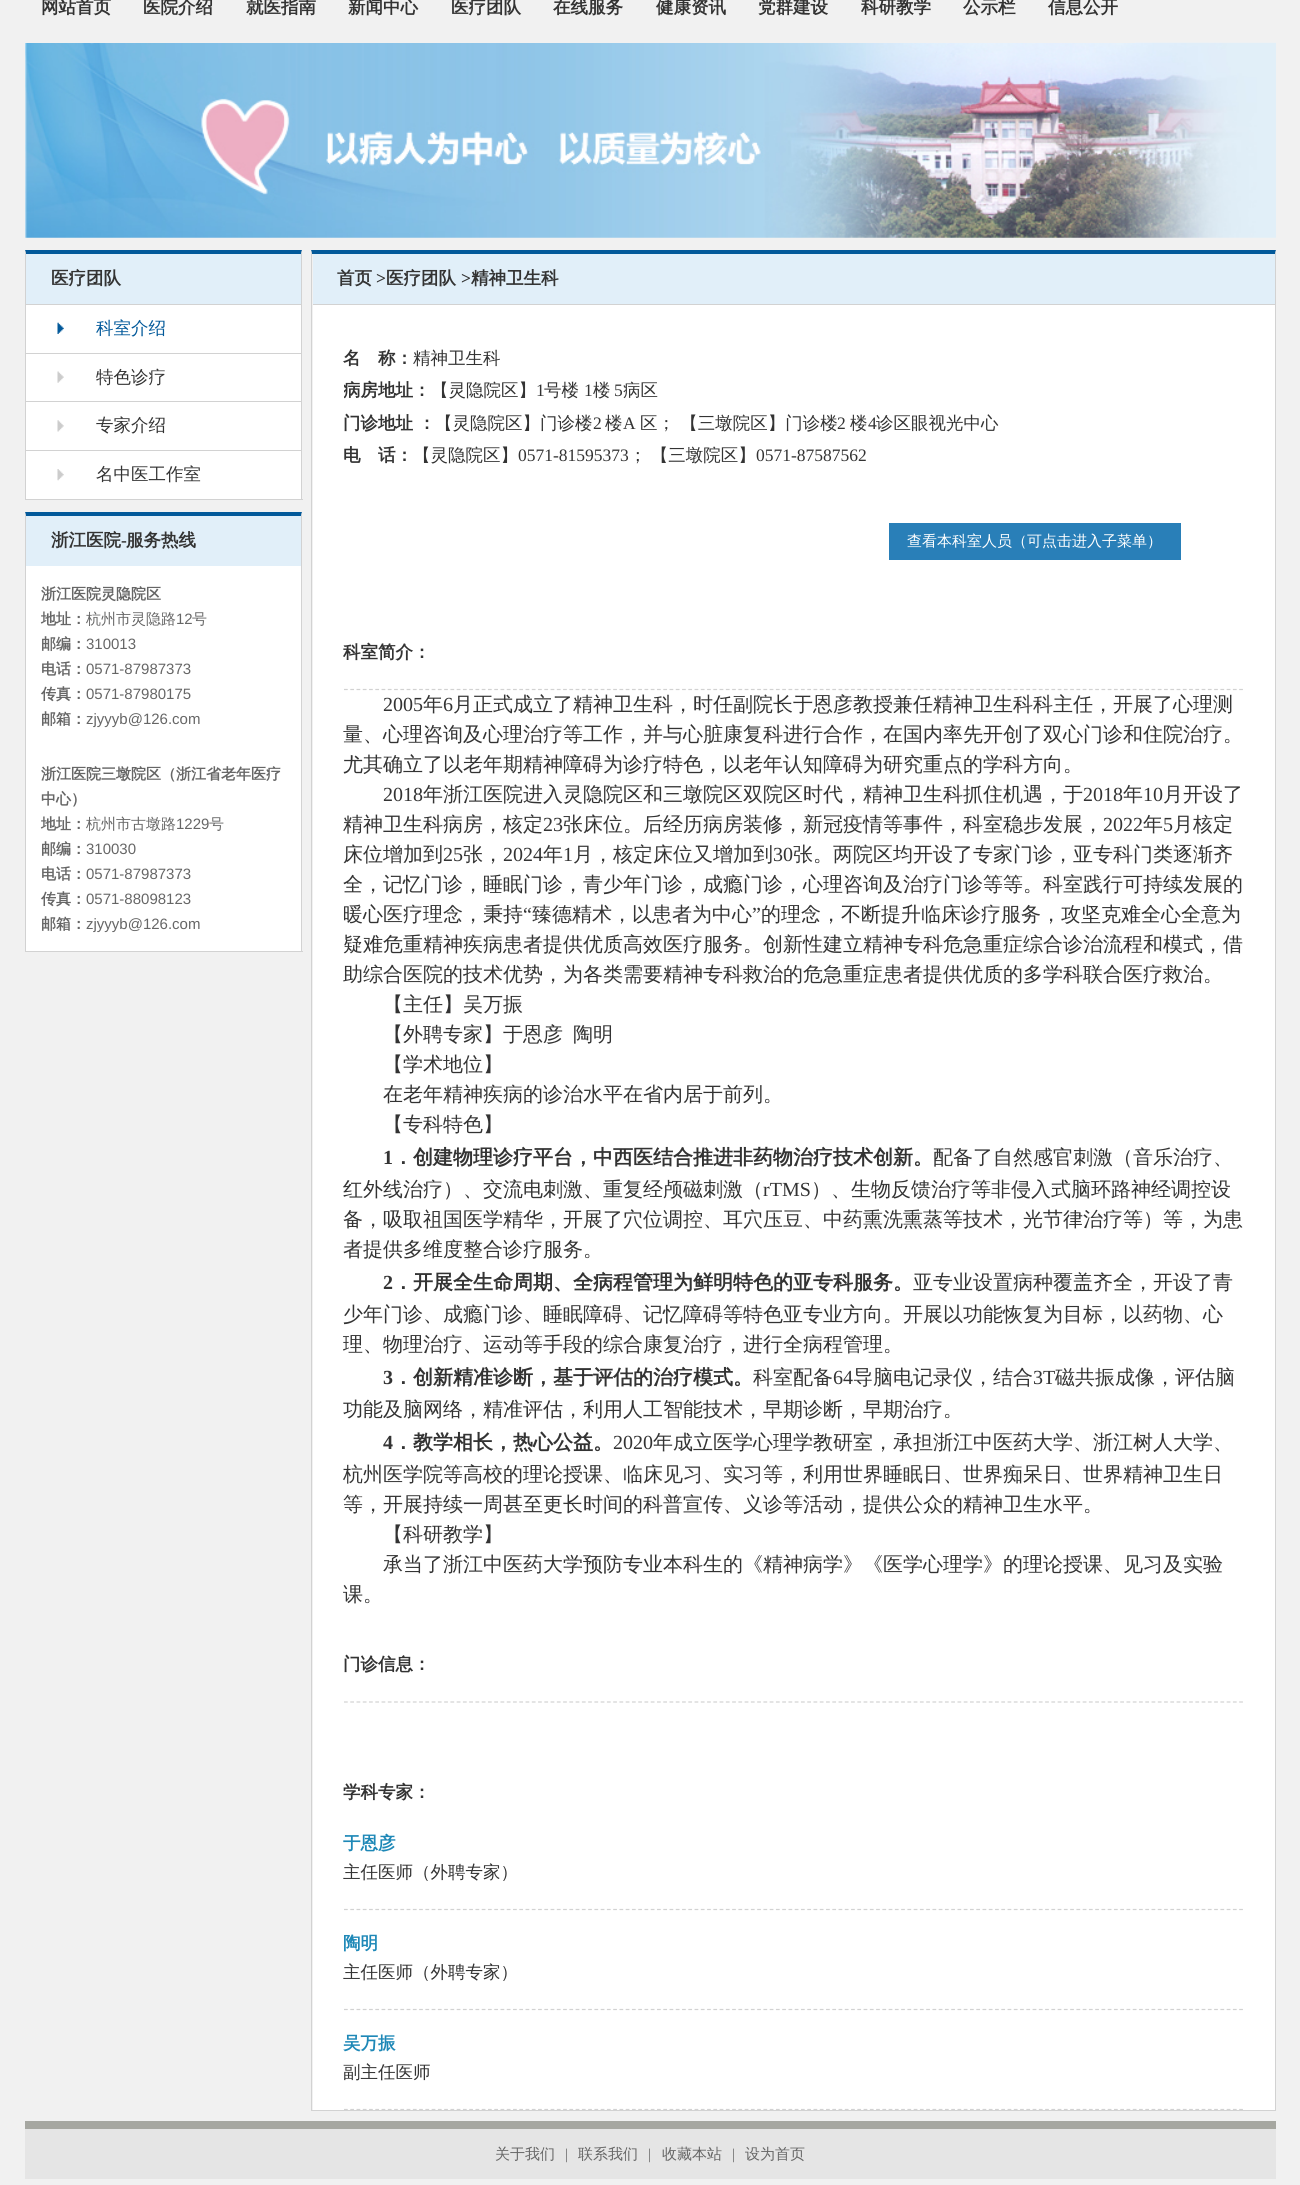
import math
import cairo


def use_color(cr, r, g, b):
  cr.set_source_rgb(r / 255, g / 255, b / 255)

def text(cr, x, y, s, family, size, color, bold=False, italic=False):
  cr.select_font_face(family, cairo.FONT_SLANT_ITALIC if italic else cairo.FONT_SLANT_NORMAL, cairo.FONT_WEIGHT_BOLD if bold else cairo.FONT_WEIGHT_NORMAL)
  cr.set_font_size(size)
  use_color(cr, *color)
  cr.move_to(x, y)
  cr.show_text(s)

def spaced_text(cr, x, y, s, letter, word):
  cr.move_to(x, y)
  for ch in s:
    cr.show_text(ch)
    cr.rel_move_to(letter + word * (ch == ' '), 0)

def box(cr, x, y, w, h, *color):
  use_color(cr, *color)
  cr.rectangle(x, y, w, h)
  cr.fill()

def picture(cr, path, x, y, w, h):
  cr.save()
  cr.set_source_surface(cairo.ImageSurface.create_from_png(path), x, y)
  cr.rectangle(x, y, w, h)
  cr.fill()
  cr.restore()

def draw(cr):
  use_color(cr, 241, 241, 241)
  cr.paint()
  picture(cr, "img_01.png", 25, 42, 1251, 196)
  cr.rectangle(26.5, -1.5, 100, 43)
  use_color(cr, 241, 241, 241)
  cr.set_line_width(3)
  cr.stroke()
  cr.rectangle(129.5, -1.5, 99, 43)
  cr.stroke()
  cr.rectangle(231.5, -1.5, 100, 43)
  cr.stroke()
  cr.rectangle(334.5, -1.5, 99, 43)
  cr.stroke()
  cr.rectangle(436.5, -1.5, 100, 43)
  cr.stroke()
  cr.rectangle(539.5, -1.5, 99, 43)
  cr.stroke()
  cr.rectangle(641.5, -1.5, 100, 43)
  cr.stroke()
  cr.rectangle(744.5, -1.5, 99, 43)
  cr.stroke()
  cr.rectangle(846.5, -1.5, 100, 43)
  cr.stroke()
  cr.rectangle(949.5, -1.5, 82, 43)
  cr.stroke()
  cr.rectangle(1034.5, -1.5, 99, 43)
  cr.stroke()
  box(cr, 26, 305, 275, 194, 255, 255, 255)
  use_color(cr, 2, 89, 154)
  cr.new_path()
  cr.move_to(25, 250)
  cr.line_to(302, 250)
  cr.line_to(301, 254)
  cr.line_to(26, 254)
  cr.close_path()
  cr.fill()
  use_color(cr, 210, 210, 210)
  cr.new_path()
  cr.move_to(302, 250)
  cr.line_to(302, 500)
  cr.line_to(301, 499)
  cr.line_to(301, 254)
  cr.close_path()
  cr.fill()
  box(cr, 25, 499, 278, 1, 210, 210, 210)
  cr.new_path()
  cr.move_to(25, 500)
  cr.line_to(25, 250)
  cr.line_to(26, 254)
  cr.line_to(26, 499)
  cr.close_path()
  cr.fill()
  box(cr, 26, 254, 275, 50, 225, 239, 249)
  box(cr, 26, 304, 275, 1, 210, 210, 210)
  picture(cr, "img_02.png", 57, 322, 7, 12)
  box(cr, 26, 353, 275, 1, 210, 210, 210)
  picture(cr, "img_03.png", 57, 371, 7, 12)
  box(cr, 26, 401, 275, 1, 210, 210, 210)
  picture(cr, "img_04.png", 57, 420, 7, 12)
  box(cr, 26, 450, 275, 1, 210, 210, 210)
  picture(cr, "img_05.png", 57, 469, 7, 12)
  box(cr, 26, 566, 275, 385, 255, 255, 255)
  use_color(cr, 2, 89, 154)
  cr.new_path()
  cr.move_to(25, 512)
  cr.line_to(302, 512)
  cr.line_to(301, 516)
  cr.line_to(26, 516)
  cr.close_path()
  cr.fill()
  use_color(cr, 210, 210, 210)
  cr.new_path()
  cr.move_to(302, 512)
  cr.line_to(302, 952)
  cr.line_to(301, 951)
  cr.line_to(301, 516)
  cr.close_path()
  cr.fill()
  box(cr, 25, 951, 278, 1, 210, 210, 210)
  cr.new_path()
  cr.move_to(25, 952)
  cr.line_to(25, 512)
  cr.line_to(26, 516)
  cr.line_to(26, 951)
  cr.close_path()
  cr.fill()
  box(cr, 26, 516, 275, 50, 225, 239, 249)
  box(cr, 313, 305, 962, 1805, 255, 255, 255)
  use_color(cr, 2, 89, 154)
  cr.new_path()
  cr.move_to(311, 250)
  cr.line_to(1276, 250)
  cr.line_to(1275, 254)
  cr.line_to(312, 254)
  cr.close_path()
  cr.fill()
  use_color(cr, 210, 210, 210)
  cr.new_path()
  cr.move_to(1276, 250)
  cr.line_to(1276, 2111)
  cr.line_to(1275, 2110)
  cr.line_to(1275, 254)
  cr.close_path()
  cr.fill()
  box(cr, 311, 2110, 965, 1, 210, 210, 210)
  cr.new_path()
  cr.move_to(311, 2111)
  cr.line_to(311, 250)
  cr.line_to(312, 254)
  cr.line_to(312, 2110)
  cr.close_path()
  cr.fill()
  box(cr, 313, 254, 962, 50, 225, 239, 249)
  box(cr, 313, 304, 962, 1, 210, 210, 210)
  box(cr, 889, 523, 292, 37, 41, 127, 184)
  cr.new_path()
  cr.move_to(344, 689.5)
  cr.line_to(1244, 689.5)
  use_color(cr, 210, 210, 210)
  cr.set_line_width(1.2)
  cr.set_dash([3.75, 2.51])
  cr.stroke()
  cr.new_path()
  cr.move_to(344, 1702)
  cr.line_to(1244, 1702)
  cr.stroke()
  cr.new_path()
  cr.move_to(344, 1909.5)
  cr.line_to(1244, 1909.5)
  cr.stroke()
  cr.new_path()
  cr.move_to(344, 2009.5)
  cr.line_to(1244, 2009.5)
  cr.stroke()
  cr.new_path()
  cr.move_to(344, 2109.5)
  cr.line_to(1244, 2109.5)
  cr.stroke()
  box(cr, 25, 2129, 1251, 50, 229, 229, 229)
  box(cr, 25, 2121, 1251, 8, 166, 167, 161)
  text(cr, 41, 13, "网站首页", "WenQuanYi Zen Hei", 17.5, (51, 51, 51), bold=True)
  text(cr, 143, 13, "医院介绍", "WenQuanYi Zen Hei", 17.5, (51, 51, 51), bold=True)
  text(cr, 246, 13, "就医指南", "WenQuanYi Zen Hei", 17.5, (51, 51, 51), bold=True)
  text(cr, 348, 13, "新闻中心", "WenQuanYi Zen Hei", 17.5, (51, 51, 51), bold=True)
  text(cr, 451, 13, "医疗团队", "WenQuanYi Zen Hei", 17.5, (51, 51, 51), bold=True)
  text(cr, 553, 13, "在线服务", "WenQuanYi Zen Hei", 17.5, (51, 51, 51), bold=True)
  text(cr, 656, 13, "健康资讯", "WenQuanYi Zen Hei", 17.5, (51, 51, 51), bold=True)
  text(cr, 758, 13, "党群建设", "WenQuanYi Zen Hei", 17.5, (51, 51, 51), bold=True)
  text(cr, 861, 13, "科研教学", "WenQuanYi Zen Hei", 17.5, (51, 51, 51), bold=True)
  text(cr, 963, 13, "公示栏", "WenQuanYi Zen Hei", 17.5, (51, 51, 51), bold=True)
  text(cr, 1048, 13, "信息公开", "WenQuanYi Zen Hei", 17.5, (51, 51, 51), bold=True)
  text(cr, 51, 284, "医疗团队", "WenQuanYi Zen Hei", 17.5, (51, 51, 51), bold=True)
  text(cr, 96, 334, "科室介绍", "WenQuanYi Zen Hei Medium", 17.5, (2, 89, 154))
  text(cr, 96, 383, "特色诊疗", "WenQuanYi Zen Hei Medium", 17.5, (51, 51, 51))
  text(cr, 96, 431, "专家介绍", "WenQuanYi Zen Hei Medium", 17.5, (51, 51, 51))
  text(cr, 96, 480, "名中医工作室", "WenQuanYi Zen Hei Medium", 17.5, (51, 51, 51))
  text(cr, 51, 546, "浙江医院", "WenQuanYi Zen Hei", 17.5, (51, 51, 51), bold=True)
  text(cr, 121, 546, "-", "Liberation Serif", 17.5, (51, 51, 51), bold=True)
  text(cr, 126, 546, "服务热线", "WenQuanYi Zen Hei", 17.5, (51, 51, 51), bold=True)
  text(cr, 41, 599, "浙江医院灵隐院区", "WenQuanYi Zen Hei", 15, (102, 102, 102), bold=True)
  text(cr, 41, 624, "地址：", "WenQuanYi Zen Hei", 15, (102, 102, 102), bold=True)
  text(cr, 86, 624, "杭州市灵隐路", "WenQuanYi Zen Hei Medium", 15, (102, 102, 102))
  text(cr, 176, 624, "12", "Liberation Sans", 15, (102, 102, 102))
  text(cr, 192, 624, "号", "WenQuanYi Zen Hei Medium", 15, (102, 102, 102))
  text(cr, 41, 649, "邮编：", "WenQuanYi Zen Hei", 15, (102, 102, 102), bold=True)
  text(cr, 86, 649, "310013", "Liberation Sans", 15, (102, 102, 102))
  text(cr, 41, 674, "电话：", "WenQuanYi Zen Hei", 15, (102, 102, 102), bold=True)
  text(cr, 86, 674, "0571-87987373", "Liberation Sans", 15, (102, 102, 102))
  text(cr, 41, 699, "传真：", "WenQuanYi Zen Hei", 15, (102, 102, 102), bold=True)
  text(cr, 86, 699, "0571-87980175", "Liberation Sans", 15, (102, 102, 102))
  text(cr, 41, 724, "邮箱：", "WenQuanYi Zen Hei", 15, (102, 102, 102), bold=True)
  text(cr, 86, 724, "zjyyyb@126.com", "Liberation Sans", 15, (102, 102, 102))
  text(cr, 41, 779, "浙江医院三墩院区（浙江省老年医疗", "WenQuanYi Zen Hei", 15, (102, 102, 102), bold=True)
  text(cr, 41, 804, "中心）", "WenQuanYi Zen Hei", 15, (102, 102, 102), bold=True)
  text(cr, 41, 829, "地址：", "WenQuanYi Zen Hei", 15, (102, 102, 102), bold=True)
  text(cr, 86, 829, "杭州市古墩路", "WenQuanYi Zen Hei Medium", 15, (102, 102, 102))
  text(cr, 176, 829, "1229", "Liberation Sans", 15, (102, 102, 102))
  text(cr, 209, 829, "号", "WenQuanYi Zen Hei Medium", 15, (102, 102, 102))
  text(cr, 41, 854, "邮编：", "WenQuanYi Zen Hei", 15, (102, 102, 102), bold=True)
  text(cr, 86, 854, "310030", "Liberation Sans", 15, (102, 102, 102))
  text(cr, 41, 879, "电话：", "WenQuanYi Zen Hei", 15, (102, 102, 102), bold=True)
  text(cr, 86, 879, "0571-87987373", "Liberation Sans", 15, (102, 102, 102))
  text(cr, 41, 904, "传真：", "WenQuanYi Zen Hei", 15, (102, 102, 102), bold=True)
  text(cr, 86, 904, "0571-88098123", "Liberation Sans", 15, (102, 102, 102))
  text(cr, 41, 929, "邮箱：", "WenQuanYi Zen Hei", 15, (102, 102, 102), bold=True)
  text(cr, 86, 929, "zjyyyb@126.com", "Liberation Sans", 15, (102, 102, 102))
  text(cr, 337, 284, "首页", "WenQuanYi Zen Hei", 17.5, (51, 51, 51), bold=True)
  text(cr, 376, 284, ">", "Liberation Serif", 17.5, (51, 51, 51), bold=True)
  text(cr, 386, 284, "医疗团队", "WenQuanYi Zen Hei", 17.5, (51, 51, 51), bold=True)
  text(cr, 461, 284, ">", "Liberation Serif", 17.5, (51, 51, 51), bold=True)
  text(cr, 471, 284, "精神卫生科", "WenQuanYi Zen Hei", 17.5, (51, 51, 51), bold=True)
  text(cr, 343, 364, "名", "WenQuanYi Zen Hei", 17.5, (51, 51, 51), bold=True)
  text(cr, 378, 364, "称：", "WenQuanYi Zen Hei", 17.5, (51, 51, 51), bold=True)
  text(cr, 413, 364, "精神卫生科", "WenQuanYi Zen Hei Medium", 17.5, (51, 51, 51))
  cr.save()
  cr.rectangle(344, 305, 900, 293)
  cr.clip()
  text(cr, 343, 396, "病房地址：", "WenQuanYi Zen Hei", 17.5, (51, 51, 51), bold=True)
  cr.restore()
  text(cr, 431, 396, "【灵隐院区】", "WenQuanYi Zen Hei Medium", 17.5, (51, 51, 51))
  text(cr, 536, 396, "1", "Liberation Serif", 17.5, (51, 51, 51))
  text(cr, 544, 396, "号楼", "WenQuanYi Zen Hei Medium", 17.5, (51, 51, 51))
  text(cr, 584, 396, "1", "Liberation Serif", 17.5, (51, 51, 51))
  text(cr, 593, 396, "楼", "WenQuanYi Zen Hei Medium", 17.5, (51, 51, 51))
  text(cr, 614, 396, "5", "Liberation Serif", 17.5, (51, 51, 51))
  text(cr, 623, 396, "病区", "WenQuanYi Zen Hei Medium", 17.5, (51, 51, 51))
  text(cr, 343, 429, "门诊地址", "WenQuanYi Zen Hei", 17.5, (51, 51, 51), bold=True)
  text(cr, 418, 429, "：", "WenQuanYi Zen Hei", 17.5, (51, 51, 51), bold=True)
  text(cr, 435, 429, "【灵隐院区】门诊楼", "WenQuanYi Zen Hei Medium", 17.5, (51, 51, 51))
  text(cr, 593, 429, "2", "Liberation Serif", 17.5, (51, 51, 51))
  text(cr, 605, 429, "楼", "WenQuanYi Zen Hei Medium", 17.5, (51, 51, 51))
  text(cr, 623, 429, "A", "Liberation Serif", 17.5, (51, 51, 51))
  text(cr, 640, 429, "区； 【三墩院区】门诊楼", "WenQuanYi Zen Hei Medium", 17.5, (51, 51, 51))
  text(cr, 837, 429, "2", "Liberation Serif", 17.5, (51, 51, 51))
  text(cr, 850, 429, "楼", "WenQuanYi Zen Hei Medium", 17.5, (51, 51, 51))
  text(cr, 868, 429, "4", "Liberation Serif", 17.5, (51, 51, 51))
  text(cr, 876, 429, "诊区眼视光中心", "WenQuanYi Zen Hei Medium", 17.5, (51, 51, 51))
  text(cr, 343, 461, "电", "WenQuanYi Zen Hei", 17.5, (51, 51, 51), bold=True)
  text(cr, 378, 461, "话：", "WenQuanYi Zen Hei", 17.5, (51, 51, 51), bold=True)
  text(cr, 413, 461, "【灵隐院区】", "WenQuanYi Zen Hei Medium", 17.5, (51, 51, 51))
  text(cr, 518, 461, "0571-81595373", "Liberation Serif", 17.5, (51, 51, 51))
  cr.select_font_face("WenQuanYi Zen Hei Medium")
  spaced_text(cr, 629, 461, "； 【三墩院区】", 0, -1)
  text(cr, 756, 461, "0571-87587562", "Liberation Serif", 17.5, (51, 51, 51))
  text(cr, 907, 546, "查看本科室人员（可点击进入子菜单）", "WenQuanYi Zen Hei Medium", 15, (255, 255, 255))
  text(cr, 343, 658, "科室简介：", "WenQuanYi Zen Hei", 17.5, (51, 51, 51), bold=True)
  text(cr, 383, 711, "2005", "Liberation Serif", 20, (51, 51, 51))
  text(cr, 423, 711, "年", "WenQuanYi Zen Hei Medium", 20, (51, 51, 51))
  text(cr, 443, 711, "6", "Liberation Serif", 20, (51, 51, 51))
  text(cr, 453, 711, "月正式成立了精神卫生科，时任副院长于恩彦教授兼任精神卫生科科主任，开展了心理测", "WenQuanYi Zen Hei Medium", 20, (51, 51, 51))
  text(cr, 343, 741, "量、心理咨询及心理治疗等工作，并与心脏康复科进行合作，在国内率先开创了双心门诊和住院治疗。", "WenQuanYi Zen Hei Medium", 20, (51, 51, 51))
  text(cr, 343, 771, "尤其确立了以老年期精神障碍为诊疗特色，以老年认知障碍为研究重点的学科方向。", "WenQuanYi Zen Hei Medium", 20, (51, 51, 51))
  text(cr, 383, 801, "2018", "Liberation Serif", 20, (51, 51, 51))
  text(cr, 423, 801, "年浙江医院进入灵隐院区和三墩院区双院区时代，精神卫生科抓住机遇，于", "WenQuanYi Zen Hei Medium", 20, (51, 51, 51))
  text(cr, 1083, 801, "2018", "Liberation Serif", 20, (51, 51, 51))
  text(cr, 1123, 801, "年", "WenQuanYi Zen Hei Medium", 20, (51, 51, 51))
  text(cr, 1143, 801, "10", "Liberation Serif", 20, (51, 51, 51))
  text(cr, 1163, 801, "月开设了", "WenQuanYi Zen Hei Medium", 20, (51, 51, 51))
  text(cr, 343, 831, "精神卫生科病房，核定", "WenQuanYi Zen Hei Medium", 20, (51, 51, 51))
  text(cr, 543, 831, "23", "Liberation Serif", 20, (51, 51, 51))
  text(cr, 563, 831, "张床位。后经历病房装修，新冠疫情等事件，科室稳步发展，", "WenQuanYi Zen Hei Medium", 20, (51, 51, 51))
  text(cr, 1103, 831, "2022", "Liberation Serif", 20, (51, 51, 51))
  text(cr, 1143, 831, "年", "WenQuanYi Zen Hei Medium", 20, (51, 51, 51))
  text(cr, 1163, 831, "5", "Liberation Serif", 20, (51, 51, 51))
  text(cr, 1173, 831, "月核定", "WenQuanYi Zen Hei Medium", 20, (51, 51, 51))
  text(cr, 343, 861, "床位增加到", "WenQuanYi Zen Hei Medium", 20, (51, 51, 51))
  text(cr, 443, 861, "25", "Liberation Serif", 20, (51, 51, 51))
  text(cr, 463, 861, "张，", "WenQuanYi Zen Hei Medium", 20, (51, 51, 51))
  text(cr, 503, 861, "2024", "Liberation Serif", 20, (51, 51, 51))
  text(cr, 543, 861, "年", "WenQuanYi Zen Hei Medium", 20, (51, 51, 51))
  text(cr, 563, 861, "1", "Liberation Serif", 20, (51, 51, 51))
  text(cr, 573, 861, "月，核定床位又增加到", "WenQuanYi Zen Hei Medium", 20, (51, 51, 51))
  text(cr, 773, 861, "30", "Liberation Serif", 20, (51, 51, 51))
  text(cr, 793, 861, "张。两院区均开设了专家门诊，亚专科门类逐渐齐", "WenQuanYi Zen Hei Medium", 20, (51, 51, 51))
  text(cr, 343, 891, "全，记忆门诊，睡眠门诊，青少年门诊，成瘾门诊，心理咨询及治疗门诊等等。科室践行可持续发展的", "WenQuanYi Zen Hei Medium", 20, (51, 51, 51))
  text(cr, 343, 921, "暖心医疗理念，秉持", "WenQuanYi Zen Hei Medium", 20, (51, 51, 51))
  text(cr, 523, 921, "“", "Liberation Serif", 20, (51, 51, 51))
  text(cr, 532, 921, "臻德精术，以患者为中心", "WenQuanYi Zen Hei Medium", 20, (51, 51, 51))
  text(cr, 752, 921, "”", "Liberation Serif", 20, (51, 51, 51))
  text(cr, 761, 921, "的理念，不断提升临床诊疗服务，攻坚克难全心全意为", "WenQuanYi Zen Hei Medium", 20, (51, 51, 51))
  text(cr, 343, 951, "疑难危重精神疾病患者提供优质高效医疗服务。创新性建立精神专科危急重症综合诊治流程和模式，借", "WenQuanYi Zen Hei Medium", 20, (51, 51, 51))
  text(cr, 343, 981, "助综合医院的技术优势，为各类需要精神专科救治的危急重症患者提供优质的多学科联合医疗救治。", "WenQuanYi Zen Hei Medium", 20, (51, 51, 51))
  text(cr, 383, 1011, "【主任】吴万振", "WenQuanYi Zen Hei Medium", 20, (51, 51, 51))
  text(cr, 383, 1041, "【外聘专家】于恩彦", "WenQuanYi Zen Hei Medium", 20, (51, 51, 51))
  text(cr, 573, 1041, "陶明", "WenQuanYi Zen Hei Medium", 20, (51, 51, 51))
  text(cr, 383, 1071, "【学术地位】", "WenQuanYi Zen Hei Medium", 20, (51, 51, 51))
  text(cr, 383, 1101, "在老年精神疾病的诊治水平在省内居于前列。", "WenQuanYi Zen Hei Medium", 20, (51, 51, 51))
  text(cr, 383, 1131, "【专科特色】", "WenQuanYi Zen Hei Medium", 20, (51, 51, 51))
  text(cr, 383, 1164, "1", "Liberation Serif", 20, (51, 51, 51), bold=True)
  text(cr, 393, 1164, "．创建物理诊疗平台，中西医结合推进非药物治疗技术创新。", "WenQuanYi Zen Hei", 20, (51, 51, 51), bold=True)
  text(cr, 933, 1164, "配备了自然感官刺激（音乐治疗、", "WenQuanYi Zen Hei Medium", 20, (51, 51, 51))
  text(cr, 343, 1196, "红外线治疗）、交流电刺激、重复经颅磁刺激（", "WenQuanYi Zen Hei Medium", 20, (51, 51, 51))
  text(cr, 763, 1196, "rTMS", "Liberation Serif", 20, (51, 51, 51))
  text(cr, 811, 1196, "）、生物反馈治疗等非侵入式脑环路神经调控设", "WenQuanYi Zen Hei Medium", 20, (51, 51, 51))
  text(cr, 343, 1226, "备，吸取祖国医学精华，开展了穴位调控、耳穴压豆、中药熏洗熏蒸等技术，光节律治疗等）等，为患", "WenQuanYi Zen Hei Medium", 20, (51, 51, 51))
  text(cr, 343, 1256, "者提供多维度整合诊疗服务。", "WenQuanYi Zen Hei Medium", 20, (51, 51, 51))
  text(cr, 383, 1289, "2", "Liberation Serif", 20, (51, 51, 51), bold=True)
  text(cr, 393, 1289, "．开展全生命周期、全病程管理为鲜明特色的亚专科服务。", "WenQuanYi Zen Hei", 20, (51, 51, 51), bold=True)
  text(cr, 913, 1289, "亚专业设置病种覆盖齐全，开设了青", "WenQuanYi Zen Hei Medium", 20, (51, 51, 51))
  text(cr, 343, 1321, "少年门诊、成瘾门诊、睡眠障碍、记忆障碍等特色亚专业方向。开展以功能恢复为目标，以药物、心", "WenQuanYi Zen Hei Medium", 20, (51, 51, 51))
  text(cr, 343, 1351, "理、物理治疗、运动等手段的综合康复治疗，进行全病程管理。", "WenQuanYi Zen Hei Medium", 20, (51, 51, 51))
  text(cr, 383, 1384, "3", "Liberation Serif", 20, (51, 51, 51), bold=True)
  text(cr, 393, 1384, "．创新精准诊断，基于评估的治疗模式。", "WenQuanYi Zen Hei", 20, (51, 51, 51), bold=True)
  text(cr, 753, 1384, "科室配备", "WenQuanYi Zen Hei Medium", 20, (51, 51, 51))
  text(cr, 833, 1384, "64", "Liberation Serif", 20, (51, 51, 51))
  text(cr, 853, 1384, "导脑电记录仪，结合", "WenQuanYi Zen Hei Medium", 20, (51, 51, 51))
  text(cr, 1033, 1384, "3T", "Liberation Serif", 20, (51, 51, 51))
  text(cr, 1055, 1384, "磁共振成像，评估脑", "WenQuanYi Zen Hei Medium", 20, (51, 51, 51))
  text(cr, 343, 1416, "功能及脑网络，精准评估，利用人工智能技术，早期诊断，早期治疗。", "WenQuanYi Zen Hei Medium", 20, (51, 51, 51))
  text(cr, 383, 1449, "4", "Liberation Serif", 20, (51, 51, 51), bold=True)
  text(cr, 393, 1449, "．教学相长，热心公益。", "WenQuanYi Zen Hei", 20, (51, 51, 51), bold=True)
  text(cr, 613, 1449, "2020", "Liberation Serif", 20, (51, 51, 51))
  text(cr, 653, 1449, "年成立医学心理学教研室，承担浙江中医药大学、浙江树人大学、", "WenQuanYi Zen Hei Medium", 20, (51, 51, 51))
  text(cr, 343, 1481, "杭州医学院等高校的理论授课、临床见习、实习等，利用世界睡眠日、世界痴呆日、世界精神卫生日", "WenQuanYi Zen Hei Medium", 20, (51, 51, 51))
  text(cr, 343, 1511, "等，开展持续一周甚至更长时间的科普宣传、义诊等活动，提供公众的精神卫生水平。", "WenQuanYi Zen Hei Medium", 20, (51, 51, 51))
  text(cr, 383, 1541, "【科研教学】", "WenQuanYi Zen Hei Medium", 20, (51, 51, 51))
  text(cr, 383, 1571, "承当了浙江中医药大学预防专业本科生的《精神病学》《医学心理学》的理论授课、见习及实验", "WenQuanYi Zen Hei Medium", 20, (51, 51, 51))
  text(cr, 343, 1601, "课。", "WenQuanYi Zen Hei Medium", 20, (51, 51, 51))
  text(cr, 343, 1670, "门诊信息：", "WenQuanYi Zen Hei", 17.5, (51, 51, 51), bold=True)
  text(cr, 343, 1798, "学科专家：", "WenQuanYi Zen Hei", 17.5, (51, 51, 51), bold=True)
  text(cr, 343, 1849, "于恩彦", "WenQuanYi Zen Hei", 17.5, (30, 136, 183), bold=True)
  text(cr, 343, 1878, "主任医师（外聘专家）", "WenQuanYi Zen Hei Medium", 17.5, (51, 51, 51))
  text(cr, 343, 1949, "陶明", "WenQuanYi Zen Hei", 17.5, (30, 136, 183), bold=True)
  text(cr, 343, 1978, "主任医师（外聘专家）", "WenQuanYi Zen Hei Medium", 17.5, (51, 51, 51))
  text(cr, 343, 2049, "吴万振", "WenQuanYi Zen Hei", 17.5, (30, 136, 183), bold=True)
  text(cr, 343, 2078, "副主任医师", "WenQuanYi Zen Hei Medium", 17.5, (51, 51, 51))
  text(cr, 495, 2159, "关于我们", "WenQuanYi Zen Hei Medium", 15, (102, 102, 102))
  text(cr, 565, 2159, "|", "Liberation Serif", 15, (102, 102, 102))
  text(cr, 578, 2159, "联系我们", "WenQuanYi Zen Hei Medium", 15, (102, 102, 102))
  text(cr, 648, 2159, "|", "Liberation Serif", 15, (102, 102, 102))
  text(cr, 662, 2159, "收藏本站", "WenQuanYi Zen Hei Medium", 15, (102, 102, 102))
  text(cr, 732, 2159, "|", "Liberation Serif", 15, (102, 102, 102))
  text(cr, 745, 2159, "设为首页", "WenQuanYi Zen Hei Medium", 15, (102, 102, 102))


surface = cairo.ImageSurface(cairo.FORMAT_RGB24, 1300, 2185)
cr = cairo.Context(surface)
options = cairo.FontOptions()
options.set_hint_metrics(cairo.HINT_METRICS_OFF)
options.set_hint_style(cairo.HINT_STYLE_NONE)
cr.set_font_options(options)
cr.set_miter_limit(4)
draw(cr)
surface.write_to_png("out.png")
